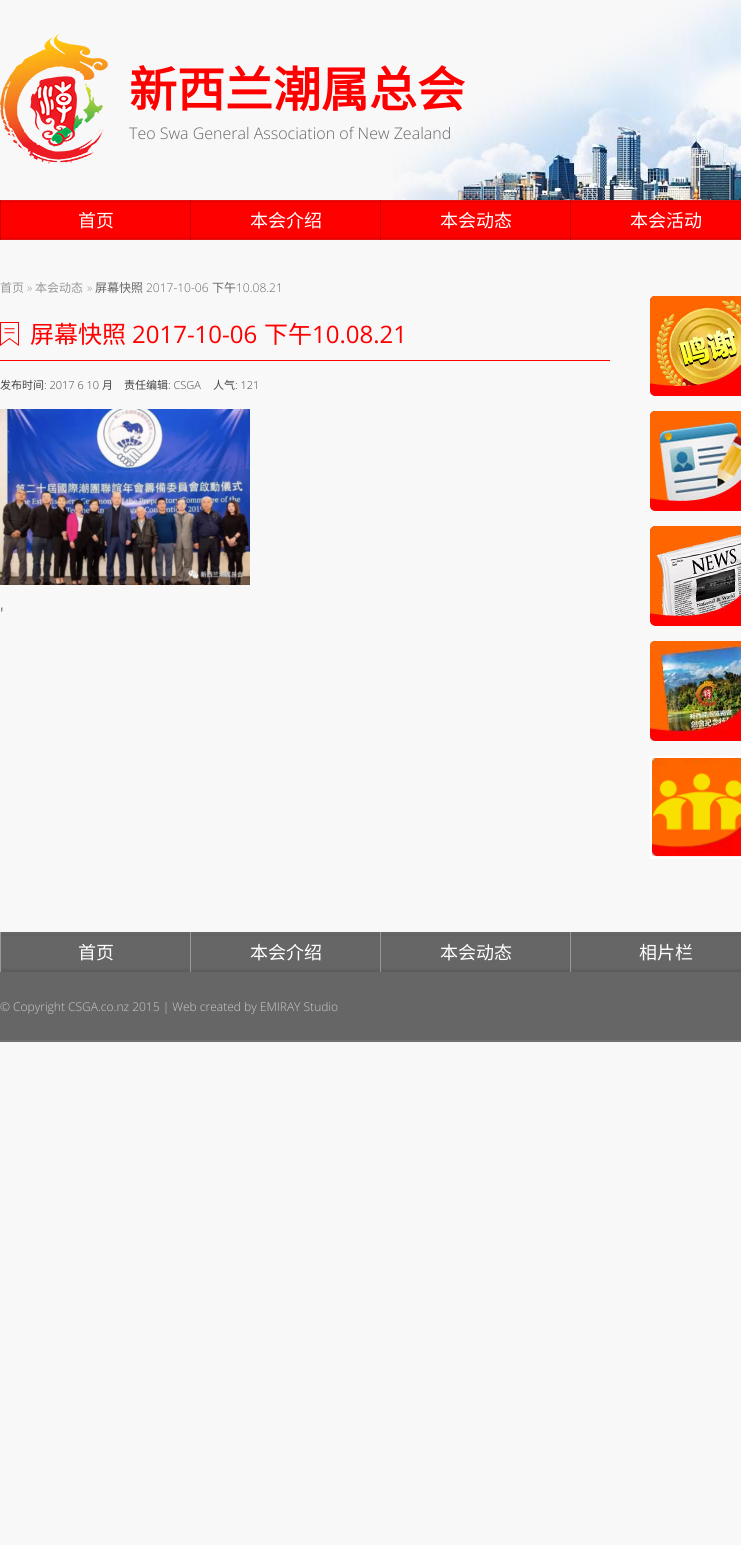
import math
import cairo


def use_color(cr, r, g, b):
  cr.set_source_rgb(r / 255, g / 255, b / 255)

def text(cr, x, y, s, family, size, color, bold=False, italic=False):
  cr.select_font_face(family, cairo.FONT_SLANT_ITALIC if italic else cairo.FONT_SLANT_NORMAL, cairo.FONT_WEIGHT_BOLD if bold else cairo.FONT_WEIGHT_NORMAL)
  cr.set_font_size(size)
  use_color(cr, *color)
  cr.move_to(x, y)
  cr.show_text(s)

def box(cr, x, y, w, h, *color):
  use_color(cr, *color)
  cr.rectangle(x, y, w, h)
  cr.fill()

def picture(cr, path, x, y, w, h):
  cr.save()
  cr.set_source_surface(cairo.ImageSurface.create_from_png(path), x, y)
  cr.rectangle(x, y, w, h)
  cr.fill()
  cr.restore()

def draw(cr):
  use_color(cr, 248, 248, 248)
  cr.paint()
  picture(cr, "img_01.png", 1, 200, 740, 40)
  picture(cr, "img_02.png", 393, 0, 348, 200)
  picture(cr, "img_03.png", 0, 34, 108, 130)
  box(cr, 0, 200, 1, 40, 204, 0, 0)
  box(cr, 190, 200, 1, 40, 204, 0, 0)
  box(cr, 380, 200, 1, 40, 204, 0, 0)
  box(cr, 570, 200, 1, 40, 204, 0, 0)
  picture(cr, "img_04.png", 0, 322, 19, 24)
  box(cr, 0, 360, 610, 1, 255, 0, 0)
  picture(cr, "img_05.png", 0, 409, 250, 176)
  picture(cr, "img_06.png", 650, 296, 91, 100)
  picture(cr, "img_07.png", 650, 411, 91, 100)
  picture(cr, "img_08.png", 650, 526, 91, 100)
  picture(cr, "img_09.png", 650, 641, 91, 100)
  picture(cr, "img_10.png", 650, 756, 91, 103)
  picture(cr, "img_11.png", 0, 932, 741, 110)
  box(cr, 0, 932, 1, 40, 153, 153, 153)
  box(cr, 190, 932, 1, 40, 153, 153, 153)
  box(cr, 380, 932, 1, 40, 153, 153, 153)
  box(cr, 570, 932, 1, 40, 153, 153, 153)
  text(cr, 129, 107, "新西兰潮属总会", "Noto Sans CJK SC", 48, (255, 0, 0), bold=True)
  text(cr, 129, 139, "Teo Swa General Association of New Zealand", "Open Sans Light", 16, (102, 102, 102))
  text(cr, 78, 227, "首页", "Noto Sans CJK SC", 18, (255, 255, 255))
  text(cr, 250, 227, "本会介绍", "Noto Sans CJK SC", 18, (255, 255, 255))
  text(cr, 440, 227, "本会动态", "Noto Sans CJK SC", 18, (255, 255, 255))
  text(cr, 630, 227, "本会活动", "Noto Sans CJK SC", 18, (255, 255, 255))
  text(cr, 0, 292, "首页", "Noto Sans CJK SC", 12, (153, 153, 153))
  text(cr, 27, 292, "»", "Open Sans Light", 12, (153, 153, 153))
  text(cr, 35, 292, "本会动态", "Noto Sans CJK SC", 12, (153, 153, 153))
  text(cr, 87, 292, "»", "Open Sans Light", 12, (153, 153, 153))
  text(cr, 95, 292, "屏幕快照", "Noto Sans CJK SC", 12, (102, 102, 102))
  text(cr, 146, 292, "2017-10-06", "Open Sans Light", 12, (102, 102, 102))
  text(cr, 212, 292, "下午", "Noto Sans CJK SC", 12, (102, 102, 102))
  text(cr, 236, 292, "10.08.21", "Open Sans Light", 12, (102, 102, 102))
  text(cr, 30, 343, "屏幕快照", "Noto Sans CJK SC", 24, (255, 0, 0))
  text(cr, 132, 343, "2017-10-06", "Open Sans", 24, (255, 0, 0))
  text(cr, 264, 343, "下午", "Noto Sans CJK SC", 24, (255, 0, 0))
  text(cr, 312, 343, "10.08.21", "Open Sans", 24, (255, 0, 0))
  text(cr, 0, 389, "发布时间", "Noto Sans CJK SC", 11, (68, 68, 68))
  text(cr, 44, 389, ": 2017 6 10", "Open Sans Light", 11, (68, 68, 68))
  text(cr, 102, 389, "月", "Noto Sans CJK SC", 11, (68, 68, 68))
  text(cr, 124, 389, "责任编辑", "Noto Sans CJK SC", 11, (68, 68, 68))
  text(cr, 168, 389, ": CSGA", "Open Sans Light", 11, (68, 68, 68))
  text(cr, 213, 389, "人气", "Noto Sans CJK SC", 11, (68, 68, 68))
  text(cr, 235, 389, ": 121", "Open Sans Light", 11, (68, 68, 68))
  text(cr, 0, 619, "'", "Open Sans", 16, (102, 102, 102))
  text(cr, 78, 959, "首页", "Noto Sans CJK SC", 18, (255, 255, 255))
  text(cr, 250, 959, "本会介绍", "Noto Sans CJK SC", 18, (255, 255, 255))
  text(cr, 440, 959, "本会动态", "Noto Sans CJK SC", 18, (255, 255, 255))
  text(cr, 639, 959, "相片栏", "Noto Sans CJK SC", 18, (255, 255, 255))
  text(cr, 0, 1011, "© Copyright CSGA.co.nz 2015 | Web created by EMIRAY Studio", "Open Sans Light", 12, (204, 204, 204))


surface = cairo.ImageSurface(cairo.FORMAT_RGB24, 741, 1545)
cr = cairo.Context(surface)
options = cairo.FontOptions()
options.set_hint_metrics(cairo.HINT_METRICS_OFF)
options.set_hint_style(cairo.HINT_STYLE_NONE)
cr.set_font_options(options)
cr.set_miter_limit(4)
draw(cr)
surface.write_to_png("out.png")
